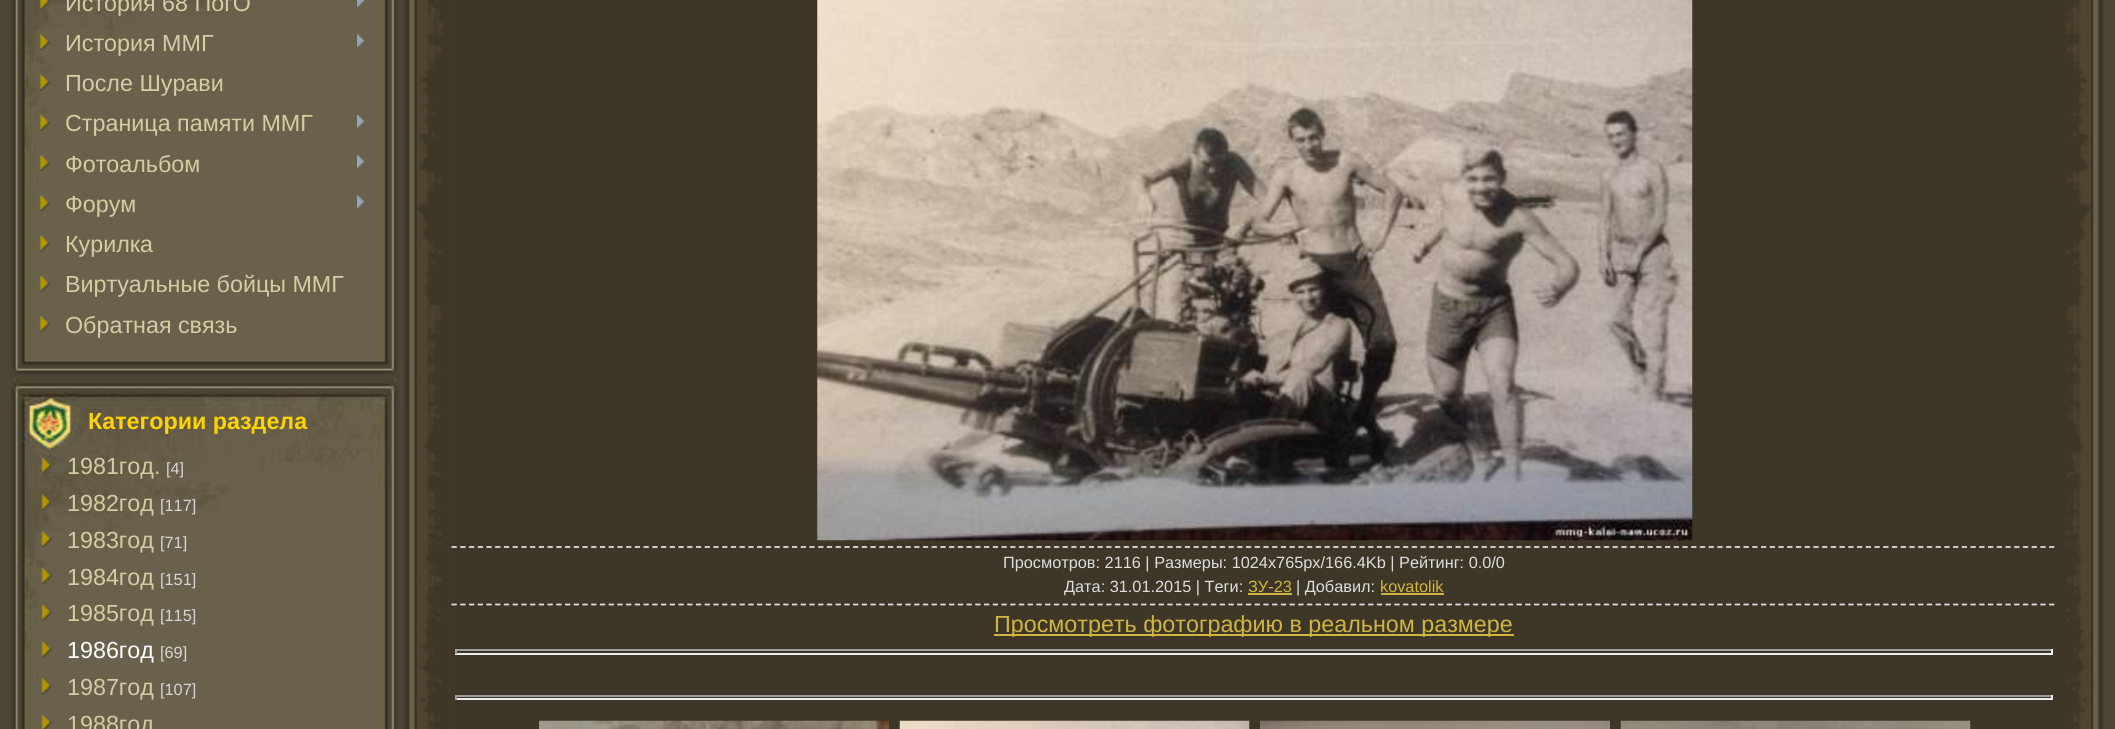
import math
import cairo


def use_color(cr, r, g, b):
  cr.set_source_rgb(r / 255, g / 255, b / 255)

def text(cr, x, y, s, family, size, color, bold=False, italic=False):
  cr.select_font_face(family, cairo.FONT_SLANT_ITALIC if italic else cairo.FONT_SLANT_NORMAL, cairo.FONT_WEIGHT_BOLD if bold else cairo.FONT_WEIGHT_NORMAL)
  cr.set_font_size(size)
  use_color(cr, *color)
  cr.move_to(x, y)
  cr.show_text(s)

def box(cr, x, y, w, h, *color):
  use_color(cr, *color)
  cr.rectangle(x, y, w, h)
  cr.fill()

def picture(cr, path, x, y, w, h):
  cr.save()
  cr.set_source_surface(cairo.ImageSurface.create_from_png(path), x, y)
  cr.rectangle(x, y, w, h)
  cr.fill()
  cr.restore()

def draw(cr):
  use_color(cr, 77, 70, 53)
  cr.paint()
  picture(cr, "img_01.png", 9, 0, 392, 378)
  picture(cr, "img_02.png", 39, 0, 11, 10)
  picture(cr, "img_03.png", 357, 0, 7, 7)
  picture(cr, "img_04.png", 39, 34, 12, 17)
  picture(cr, "img_05.png", 357, 34, 7, 13)
  picture(cr, "img_06.png", 39, 74, 12, 17)
  picture(cr, "img_07.png", 39, 114, 12, 17)
  picture(cr, "img_08.png", 357, 115, 7, 13)
  picture(cr, "img_09.png", 39, 154, 12, 17)
  picture(cr, "img_10.png", 357, 155, 7, 13)
  picture(cr, "img_11.png", 39, 195, 12, 17)
  picture(cr, "img_05.png", 357, 195, 7, 13)
  picture(cr, "img_12.png", 39, 235, 12, 17)
  picture(cr, "img_07.png", 39, 275, 12, 17)
  picture(cr, "img_09.png", 39, 315, 12, 17)
  picture(cr, "img_14.png", 9, 377, 392, 352)
  picture(cr, "img_13.png", 11, 360, 390, 18)
  picture(cr, "img_15.png", 41, 457, 11, 17)
  picture(cr, "img_16.png", 41, 494, 10, 17)
  picture(cr, "img_17.png", 41, 531, 12, 17)
  picture(cr, "img_18.png", 41, 568, 12, 16)
  picture(cr, "img_19.png", 41, 604, 12, 17)
  picture(cr, "img_20.png", 41, 641, 12, 17)
  picture(cr, "img_21.png", 41, 678, 12, 17)
  picture(cr, "img_22.png", 41, 715, 12, 14)
  picture(cr, "img_23.png", 403, 0, 47, 729)
  box(cr, 450, 0, 1608, 729, 62, 55, 39)
  picture(cr, "img_24.png", 817, 0, 876, 541)
  cr.new_path()
  cr.move_to(451.5, 547)
  cr.line_to(2056, 547)
  use_color(cr, 221, 221, 221)
  cr.set_line_width(1.8)
  cr.set_dash([5.25, 3.48])
  cr.stroke()
  cr.new_path()
  cr.move_to(451.5, 604.5)
  cr.line_to(2056, 604.5)
  cr.stroke()
  box(cr, 1248, 593, 44, 2, 208, 181, 65)
  box(cr, 1381, 593, 63, 2, 208, 181, 65)
  box(cr, 994, 634, 520, 2, 208, 181, 65)
  box(cr, 455, 649, 1598, 2, 159, 159, 159)
  box(cr, 2051, 649, 2, 5, 238, 238, 238)
  box(cr, 455, 653, 1598, 2, 238, 238, 238)
  box(cr, 455, 649, 2, 5, 159, 159, 159)
  box(cr, 455, 695, 1598, 2, 159, 159, 159)
  box(cr, 2051, 695, 2, 5, 238, 238, 238)
  box(cr, 455, 698, 1598, 2, 238, 238, 238)
  box(cr, 455, 695, 2, 5, 159, 159, 159)
  picture(cr, "img_25.png", 539, 720, 350, 9)
  picture(cr, "img_26.png", 899, 720, 351, 9)
  picture(cr, "img_27.png", 1260, 720, 350, 9)
  picture(cr, "img_28.png", 1620, 720, 351, 9)
  picture(cr, "img_29.png", 2058, 0, 46, 729)
  text(cr, 65, 11, "История 68 ПогО", "Liberation Sans", 23.3, (213, 204, 163))
  text(cr, 65, 51, "История ММГ", "Liberation Sans", 23.3, (213, 204, 163))
  text(cr, 65, 91, "После Шурави", "Liberation Sans", 23.3, (213, 204, 163))
  text(cr, 65, 131, "Страница памяти ММГ", "Liberation Sans", 23.3, (213, 204, 163))
  text(cr, 65, 172, "Фотоальбом", "Liberation Sans", 23.3, (213, 204, 163))
  text(cr, 65, 212, "Форум", "Liberation Sans", 23.3, (213, 204, 163))
  text(cr, 65, 252, "Курилка", "Liberation Sans", 23.3, (213, 204, 163))
  text(cr, 65, 292, "Виртуальные бойцы ММГ", "Liberation Sans", 23.3, (213, 204, 163))
  text(cr, 65, 333, "Обратная связь", "Liberation Sans", 23.3, (213, 204, 163))
  text(cr, 88, 429, "Категории раздела", "Liberation Sans", 23.3, (255, 211, 0), bold=True)
  text(cr, 67, 474, "1981год.", "Liberation Sans", 23.3, (213, 204, 163))
  text(cr, 166, 474, "[4]", "Liberation Sans", 16.3, (216, 213, 213))
  text(cr, 67, 511, "1982год", "Liberation Sans", 23.3, (213, 204, 163))
  text(cr, 160, 511, "[117]", "Liberation Sans", 16.3, (216, 213, 213))
  text(cr, 67, 548, "1983год", "Liberation Sans", 23.3, (213, 204, 163))
  text(cr, 160, 548, "[71]", "Liberation Sans", 16.3, (216, 213, 213))
  text(cr, 67, 585, "1984год", "Liberation Sans", 23.3, (213, 204, 163))
  text(cr, 160, 585, "[151]", "Liberation Sans", 16.3, (216, 213, 213))
  text(cr, 67, 621, "1985год", "Liberation Sans", 23.3, (213, 204, 163))
  text(cr, 160, 621, "[115]", "Liberation Sans", 16.3, (216, 213, 213))
  text(cr, 67, 658, "1986год", "Liberation Sans", 23.3, (255, 255, 255))
  text(cr, 160, 658, "[69]", "Liberation Sans", 16.3, (216, 213, 213))
  text(cr, 67, 695, "1987год", "Liberation Sans", 23.3, (213, 204, 163))
  text(cr, 160, 695, "[107]", "Liberation Sans", 16.3, (216, 213, 213))
  text(cr, 67, 732, "1988год", "Liberation Sans", 23.3, (213, 204, 163))
  text(cr, 1003, 568, "Просмотров: 2116 | Размеры: 1024x765px/166.4Kb | Рейтинг: 0.0/0", "Liberation Sans", 16.3, (221, 221, 221))
  text(cr, 1064, 592, "Дата: 31.01.2015 | Теги:", "Liberation Sans", 16.3, (221, 221, 221))
  text(cr, 1248, 592, "ЗУ-23", "Liberation Sans", 16.3, (208, 181, 65))
  text(cr, 1296, 592, "| Добавил:", "Liberation Sans", 16.3, (221, 221, 221))
  text(cr, 1380, 592, "kovatolik", "Liberation Sans", 16.3, (208, 181, 65))
  text(cr, 994, 632, "Просмотреть фотографию в реальном размере", "Liberation Sans", 23.3, (208, 181, 65))


surface = cairo.ImageSurface(cairo.FORMAT_RGB24, 2115, 729)
cr = cairo.Context(surface)
options = cairo.FontOptions()
options.set_hint_metrics(cairo.HINT_METRICS_OFF)
options.set_hint_style(cairo.HINT_STYLE_NONE)
cr.set_font_options(options)
cr.set_miter_limit(4)
draw(cr)
surface.write_to_png("out.png")
